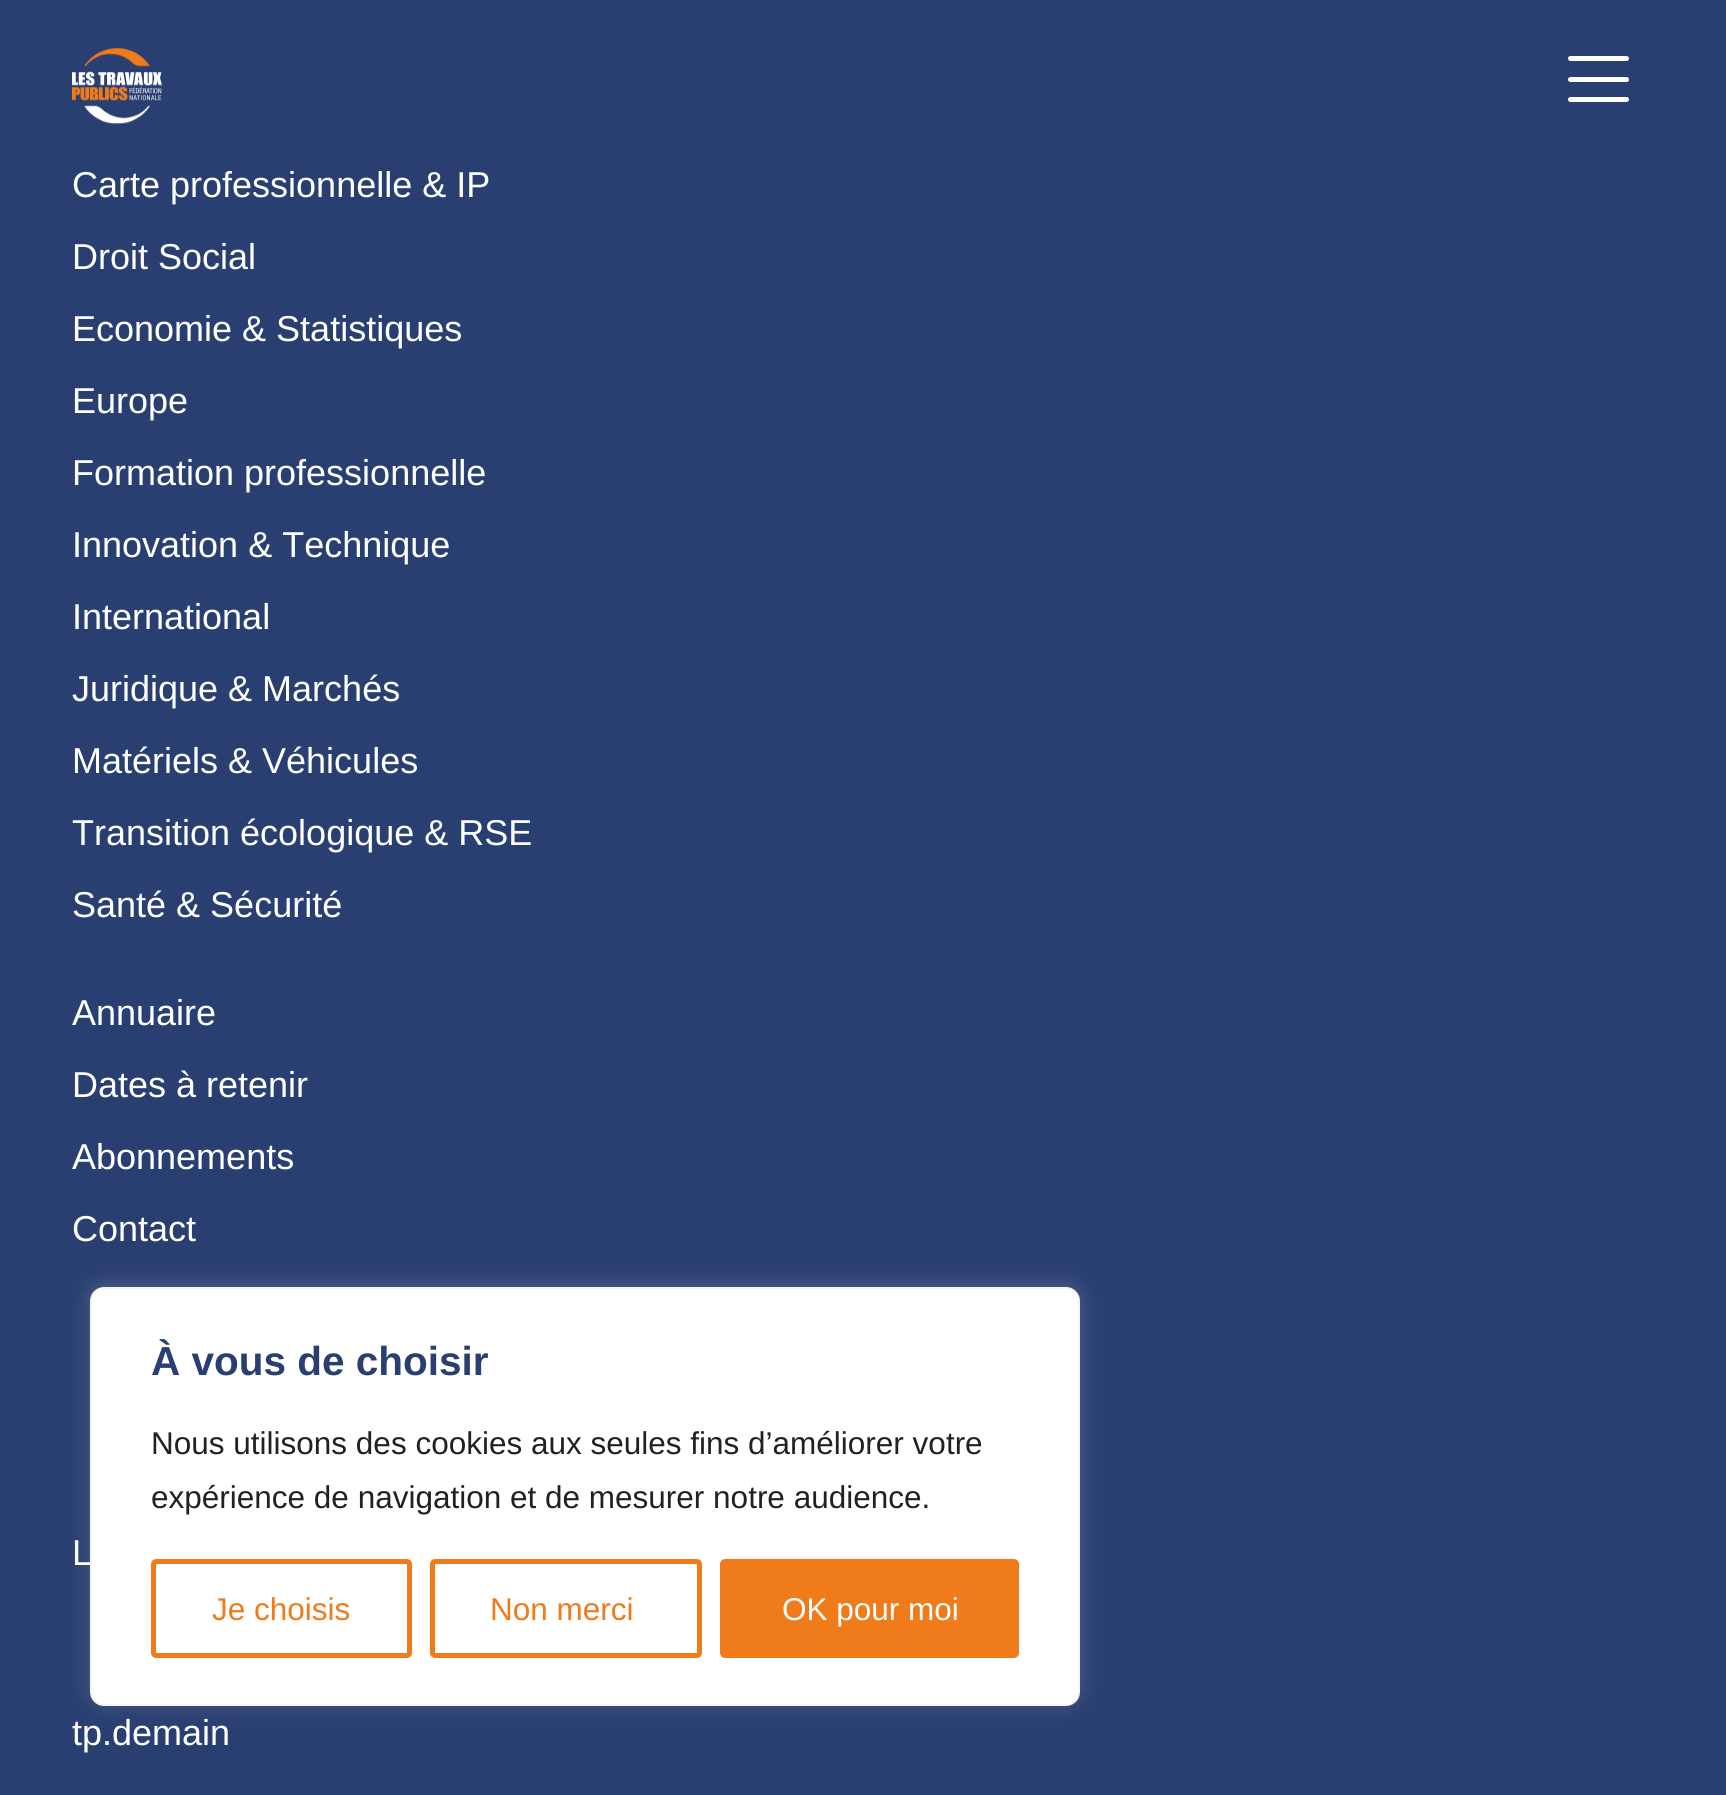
import math
import cairo


def use_color(cr, r, g, b):
  cr.set_source_rgb(r / 255, g / 255, b / 255)

def text(cr, x, y, s, family, size, color, bold=False, italic=False):
  cr.select_font_face(family, cairo.FONT_SLANT_ITALIC if italic else cairo.FONT_SLANT_NORMAL, cairo.FONT_WEIGHT_BOLD if bold else cairo.FONT_WEIGHT_NORMAL)
  cr.set_font_size(size)
  use_color(cr, *color)
  cr.move_to(x, y)
  cr.show_text(s)

def box(cr, x, y, w, h, *color):
  use_color(cr, *color)
  cr.rectangle(x, y, w, h)
  cr.fill()

def round_rect(cr, x, y, w, h, r):
  cr.new_sub_path()
  for i, (u, v) in enumerate([(x + w - r, y + h - r), (x + r, y + h - r), (x + r, y + r), (x + w - r, y + r)]):
    cr.arc(u, v, r, i * math.pi / 2, (i + 1) * math.pi / 2)
  cr.close_path()

def shadow(cr, x, y, w, h, r, blur, alpha):
  cr.push_group_with_content(cairo.CONTENT_ALPHA)
  cr.set_operator(cairo.OPERATOR_SOURCE)
  for i in range(15, -16, -2):
    e = blur * i / 6
    if min(w, h) + 2 * e > 0:
      cr.set_source_rgba(0, 0, 0, alpha * math.erfc((i - 1) / 8.5) / 2)
      round_rect(cr, x - e, y - e, w + 2 * e, h + 2 * e, max(0, min(r + e + blur * .6, min(w, h) / 2 + e)))
      cr.fill()
  cr.mask(cr.pop_group())

def picture(cr, path, x, y, w, h):
  cr.save()
  cr.set_source_surface(cairo.ImageSurface.create_from_png(path), x, y)
  cr.rectangle(x, y, w, h)
  cr.fill()
  cr.restore()

def draw(cr):
  use_color(cr, 41, 63, 114)
  cr.paint()
  picture(cr, "img_01.png", 72, 48, 90, 77)
  use_color(cr, 255, 255, 255)
  round_rect(cr, 1568, 56, 61, 5, 2.5)
  cr.fill()
  round_rect(cr, 1568, 77, 61, 5, 2.5)
  cr.fill()
  round_rect(cr, 1568, 97, 61, 5, 2.5)
  cr.fill()
  use_color(cr, 172, 171, 171)
  shadow(cr, 90, 1285, 990, 418, 14, 11, 0.3)
  use_color(cr, 255, 255, 255)
  round_rect(cr, 91, 1288, 988, 417, 13)
  cr.fill_preserve()
  use_color(cr, 244, 244, 244)
  cr.stroke()
  round_rect(cr, 153.5, 1561.5, 256, 94, 2.5)
  use_color(cr, 239, 123, 27)
  cr.set_line_width(5)
  cr.stroke()
  round_rect(cr, 432.5, 1561.5, 267, 94, 2.5)
  cr.stroke()
  round_rect(cr, 722.5, 1561.5, 294, 94, 2.5)
  cr.fill_preserve()
  cr.stroke()
  text(cr, 72, 197, "Carte professionnelle & IP", "Liberation Sans", 36, (255, 255, 255))
  box(cr, 229, 170, 161, 1, 41, 63, 114)
  text(cr, 72, 269, "Droit Social", "Liberation Sans", 36, (255, 255, 255))
  text(cr, 72, 341, "Economie & Statistiques", "Liberation Sans", 36, (255, 255, 255))
  text(cr, 72, 413, "Europe", "Liberation Sans", 36, (255, 255, 255))
  text(cr, 72, 485, "Formation professionnelle", "Liberation Sans", 36, (255, 255, 255))
  text(cr, 72, 557, "Innovation & Technique", "Liberation Sans", 36, (255, 255, 255))
  text(cr, 72, 629, "International", "Liberation Sans", 36, (255, 255, 255))
  text(cr, 72, 701, "Juridique & Marchés", "Liberation Sans", 36, (255, 255, 255))
  text(cr, 72, 773, "Matériels & Véhicules", "Liberation Sans", 36, (255, 255, 255))
  text(cr, 72, 845, "Transition écologique & RSE", "Liberation Sans", 36, (255, 255, 255))
  text(cr, 72, 917, "Santé & Sécurité", "Liberation Sans", 36, (255, 255, 255))
  text(cr, 72, 1025, "Annuaire", "Liberation Sans", 36, (255, 255, 255))
  text(cr, 72, 1097, "Dates à retenir", "Liberation Sans", 36, (255, 255, 255))
  text(cr, 72, 1169, "Abonnements", "Liberation Sans", 36, (255, 255, 255))
  text(cr, 72, 1241, "Contact", "Liberation Sans", 36, (255, 255, 255))
  text(cr, 72, 1565, "L", "Liberation Sans", 36, (255, 255, 255))
  text(cr, 72, 1745, "tp.demain", "Liberation Sans", 36, (255, 255, 255))
  text(cr, 151, 1375, "À vous de choisir", "Liberation Sans", 40.5, (41, 63, 114), bold=True)
  text(cr, 151, 1454, "Nous utilisons des cookies aux seules fins d’améliorer votre", "Liberation Sans", 31.5, (33, 33, 33))
  text(cr, 151, 1508, "expérience de navigation et de mesurer notre audience.", "Liberation Sans", 31.5, (33, 33, 33))
  text(cr, 212, 1620, "Je choisis", "Liberation Sans", 31.5, (239, 123, 27))
  text(cr, 490, 1620, "Non merci", "Liberation Sans", 31.5, (239, 123, 27))
  text(cr, 782, 1620, "OK pour moi", "Liberation Sans", 31.5, (255, 255, 255))


surface = cairo.ImageSurface(cairo.FORMAT_RGB24, 1726, 1795)
cr = cairo.Context(surface)
options = cairo.FontOptions()
options.set_hint_metrics(cairo.HINT_METRICS_OFF)
options.set_hint_style(cairo.HINT_STYLE_NONE)
cr.set_font_options(options)
cr.set_miter_limit(4)
draw(cr)
surface.write_to_png("out.png")
